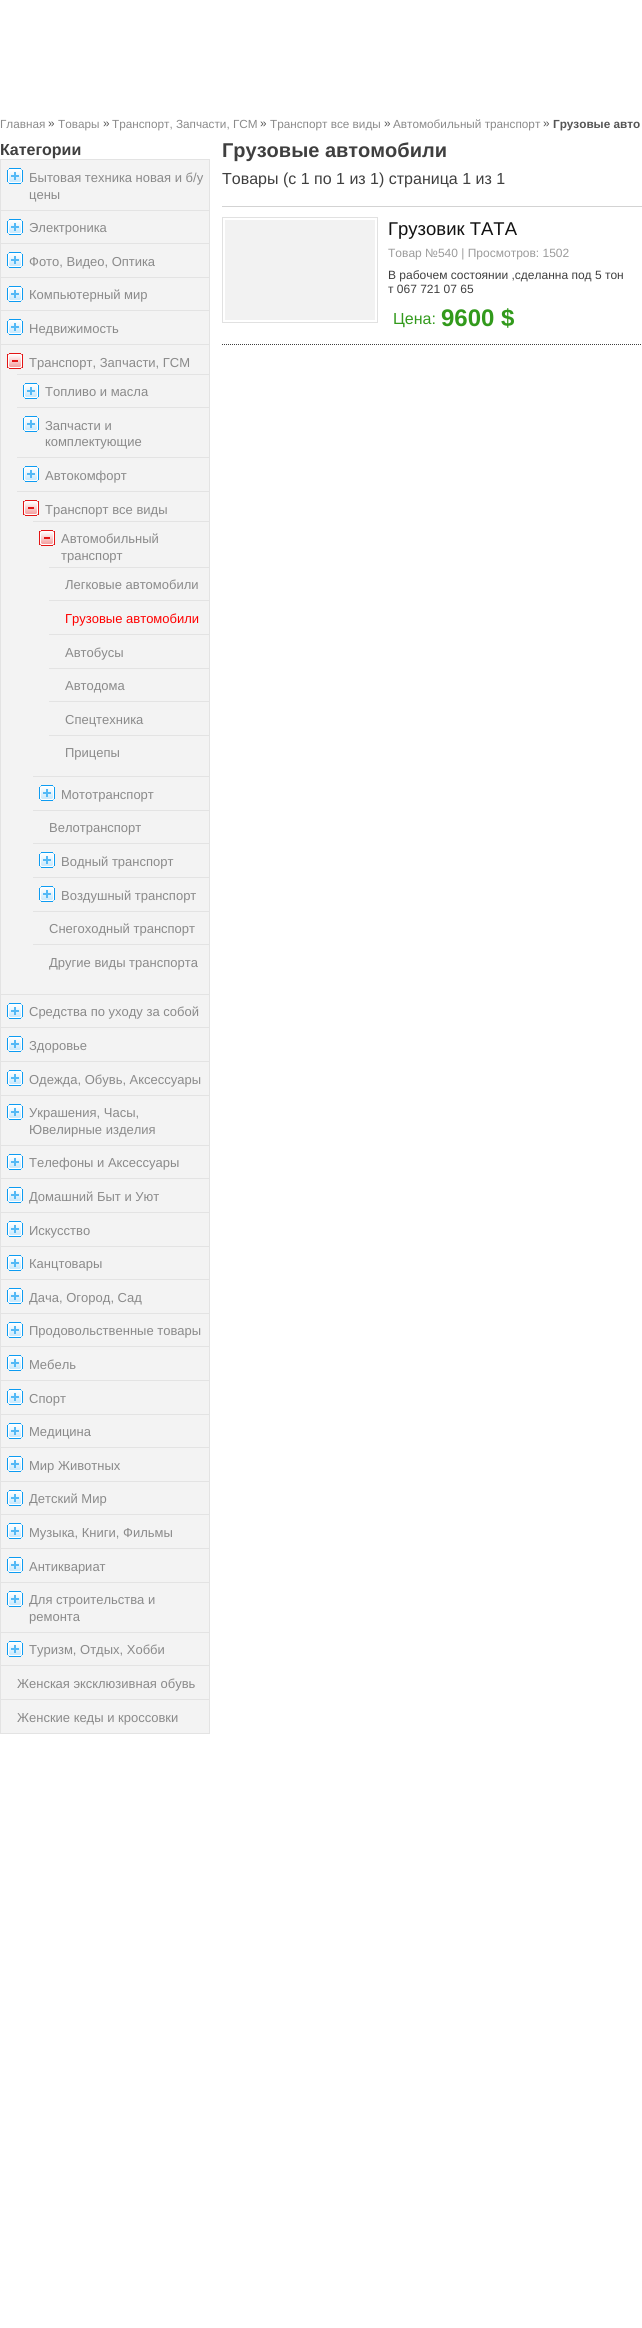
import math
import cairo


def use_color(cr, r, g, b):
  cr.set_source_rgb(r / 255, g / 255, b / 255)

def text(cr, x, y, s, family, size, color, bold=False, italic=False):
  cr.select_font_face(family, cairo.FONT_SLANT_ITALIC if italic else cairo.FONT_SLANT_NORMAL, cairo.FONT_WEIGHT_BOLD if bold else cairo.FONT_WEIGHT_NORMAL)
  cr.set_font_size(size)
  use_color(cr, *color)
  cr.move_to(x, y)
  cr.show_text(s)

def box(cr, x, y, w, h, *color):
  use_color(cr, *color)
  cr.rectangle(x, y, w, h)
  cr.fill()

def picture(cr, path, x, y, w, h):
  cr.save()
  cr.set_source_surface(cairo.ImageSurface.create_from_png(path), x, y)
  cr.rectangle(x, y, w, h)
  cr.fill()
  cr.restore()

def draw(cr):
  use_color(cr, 255, 255, 255)
  cr.paint()
  box(cr, 209, 159, 1, 1575, 227, 227, 227)
  box(cr, 0, 1733, 210, 1, 227, 227, 227)
  box(cr, 0, 159, 1, 1575, 227, 227, 227)
  box(cr, 1, 160, 208, 1573, 243, 243, 243)
  box(cr, 1, 159, 208, 1, 227, 227, 227)
  picture(cr, "img_01.png", 7, 168, 16, 16)
  box(cr, 1, 210, 208, 1, 227, 227, 227)
  picture(cr, "img_01.png", 7, 219, 16, 16)
  box(cr, 1, 243, 208, 1, 227, 227, 227)
  picture(cr, "img_01.png", 7, 252, 16, 16)
  box(cr, 1, 277, 208, 1, 227, 227, 227)
  picture(cr, "img_01.png", 7, 286, 16, 16)
  box(cr, 1, 310, 208, 1, 227, 227, 227)
  picture(cr, "img_01.png", 7, 319, 16, 16)
  box(cr, 1, 344, 208, 1, 227, 227, 227)
  picture(cr, "img_02.png", 7, 353, 16, 16)
  box(cr, 17, 374, 192, 1, 227, 227, 227)
  picture(cr, "img_01.png", 23, 383, 16, 16)
  box(cr, 17, 407, 192, 1, 227, 227, 227)
  picture(cr, "img_01.png", 23, 416, 16, 16)
  box(cr, 17, 457, 192, 1, 227, 227, 227)
  picture(cr, "img_01.png", 23, 466, 16, 16)
  box(cr, 17, 491, 192, 1, 227, 227, 227)
  picture(cr, "img_02.png", 23, 500, 16, 16)
  box(cr, 33, 521, 176, 1, 227, 227, 227)
  picture(cr, "img_02.png", 39, 530, 16, 16)
  box(cr, 49, 567, 160, 1, 227, 227, 227)
  box(cr, 49, 600, 160, 1, 227, 227, 227)
  box(cr, 49, 634, 160, 1, 227, 227, 227)
  box(cr, 49, 668, 160, 1, 227, 227, 227)
  box(cr, 49, 701, 160, 1, 227, 227, 227)
  box(cr, 49, 735, 160, 1, 227, 227, 227)
  box(cr, 33, 776, 176, 1, 227, 227, 227)
  picture(cr, "img_01.png", 39, 785, 16, 16)
  box(cr, 33, 810, 176, 1, 227, 227, 227)
  box(cr, 33, 843, 176, 1, 227, 227, 227)
  picture(cr, "img_01.png", 39, 852, 16, 16)
  box(cr, 33, 877, 176, 1, 227, 227, 227)
  picture(cr, "img_01.png", 39, 886, 16, 16)
  box(cr, 33, 911, 176, 1, 227, 227, 227)
  box(cr, 33, 944, 176, 1, 227, 227, 227)
  box(cr, 1, 994, 208, 1, 227, 227, 227)
  picture(cr, "img_01.png", 7, 1003, 16, 16)
  box(cr, 1, 1027, 208, 1, 227, 227, 227)
  picture(cr, "img_01.png", 7, 1036, 16, 16)
  box(cr, 1, 1061, 208, 1, 227, 227, 227)
  picture(cr, "img_01.png", 7, 1070, 16, 16)
  box(cr, 1, 1095, 208, 1, 227, 227, 227)
  picture(cr, "img_01.png", 7, 1104, 16, 16)
  box(cr, 1, 1145, 208, 1, 227, 227, 227)
  picture(cr, "img_01.png", 7, 1154, 16, 16)
  box(cr, 1, 1178, 208, 1, 227, 227, 227)
  picture(cr, "img_01.png", 7, 1187, 16, 16)
  box(cr, 1, 1212, 208, 1, 227, 227, 227)
  picture(cr, "img_01.png", 7, 1221, 16, 16)
  box(cr, 1, 1246, 208, 1, 227, 227, 227)
  picture(cr, "img_01.png", 7, 1255, 16, 16)
  box(cr, 1, 1279, 208, 1, 227, 227, 227)
  picture(cr, "img_01.png", 7, 1288, 16, 16)
  box(cr, 1, 1313, 208, 1, 227, 227, 227)
  picture(cr, "img_01.png", 7, 1322, 16, 16)
  box(cr, 1, 1346, 208, 1, 227, 227, 227)
  picture(cr, "img_01.png", 7, 1355, 16, 16)
  box(cr, 1, 1380, 208, 1, 227, 227, 227)
  picture(cr, "img_01.png", 7, 1389, 16, 16)
  box(cr, 1, 1414, 208, 1, 227, 227, 227)
  picture(cr, "img_01.png", 7, 1423, 16, 16)
  box(cr, 1, 1447, 208, 1, 227, 227, 227)
  picture(cr, "img_01.png", 7, 1456, 16, 16)
  box(cr, 1, 1481, 208, 1, 227, 227, 227)
  picture(cr, "img_01.png", 7, 1490, 16, 16)
  box(cr, 1, 1514, 208, 1, 227, 227, 227)
  picture(cr, "img_01.png", 7, 1523, 16, 16)
  box(cr, 1, 1548, 208, 1, 227, 227, 227)
  picture(cr, "img_01.png", 7, 1557, 16, 16)
  box(cr, 1, 1582, 208, 1, 227, 227, 227)
  picture(cr, "img_01.png", 7, 1591, 16, 16)
  box(cr, 1, 1632, 208, 1, 227, 227, 227)
  picture(cr, "img_01.png", 7, 1641, 16, 16)
  box(cr, 1, 1665, 208, 1, 227, 227, 227)
  box(cr, 1, 1699, 208, 1, 227, 227, 227)
  box(cr, 222, 206, 420, 1, 211, 211, 211)
  cr.new_path()
  cr.move_to(222, 344.5)
  cr.line_to(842, 344.5)
  use_color(cr, 63, 63, 63)
  cr.set_line_width(1)
  cr.set_dash([1, 1])
  cr.stroke()
  cr.rectangle(222.5, 217.5, 155, 105)
  use_color(cr, 225, 225, 225)
  cr.set_dash([])
  cr.stroke()
  box(cr, 225, 220, 150, 100, 242, 242, 242)
  text(cr, 0, 128, "Главная", "Liberation Sans", 11.75, (138, 138, 138))
  text(cr, 48, 127, "»", "Liberation Sans", 11.75, (85, 85, 85))
  text(cr, 58, 128, "Товары", "Liberation Sans", 11.75, (138, 138, 138))
  text(cr, 103, 127, "»", "Liberation Sans", 11.75, (85, 85, 85))
  text(cr, 112, 128, "Транспорт, Запчасти, ГСМ", "Liberation Sans", 11.75, (138, 138, 138))
  text(cr, 260, 127, "»", "Liberation Sans", 11.75, (85, 85, 85))
  text(cr, 270, 128, "Транспорт все виды", "Liberation Sans", 11.75, (138, 138, 138))
  text(cr, 384, 127, "»", "Liberation Sans", 11.75, (85, 85, 85))
  text(cr, 393, 128, "Автомобильный транспорт", "Liberation Sans", 11.75, (138, 138, 138))
  text(cr, 543, 127, "»", "Liberation Sans", 11.75, (85, 85, 85))
  text(cr, 553, 128, "Грузовые авто", "Liberation Sans", 11.75, (85, 85, 85), bold=True)
  text(cr, 0, 155, "Категории", "Liberation Sans", 16, (63, 63, 63), bold=True)
  text(cr, 29, 182, "Бытовая техника новая и б/у", "Liberation Sans", 13, (138, 138, 138))
  text(cr, 29, 199, "цены", "Liberation Sans", 13, (138, 138, 138))
  text(cr, 29, 232, "Электроника", "Liberation Sans", 13, (138, 138, 138))
  text(cr, 29, 266, "Фото, Видео, Оптика", "Liberation Sans", 13, (138, 138, 138))
  text(cr, 29, 299, "Компьютерный мир", "Liberation Sans", 13, (138, 138, 138))
  text(cr, 29, 333, "Недвижимость", "Liberation Sans", 13, (138, 138, 138))
  text(cr, 29, 367, "Транспорт, Запчасти, ГСМ", "Liberation Sans", 13, (138, 138, 138))
  text(cr, 45, 396, "Топливо и масла", "Liberation Sans", 13, (138, 138, 138))
  text(cr, 45, 430, "Запчасти и", "Liberation Sans", 13, (138, 138, 138))
  text(cr, 45, 446, "комплектующие", "Liberation Sans", 13, (138, 138, 138))
  text(cr, 45, 480, "Автокомфорт", "Liberation Sans", 13, (138, 138, 138))
  text(cr, 45, 514, "Транспорт все виды", "Liberation Sans", 13, (138, 138, 138))
  text(cr, 61, 543, "Автомобильный", "Liberation Sans", 13, (138, 138, 138))
  text(cr, 61, 560, "транспорт", "Liberation Sans", 13, (138, 138, 138))
  text(cr, 65, 589, "Легковые автомобили", "Liberation Sans", 13, (138, 138, 138))
  text(cr, 65, 623, "Грузовые автомобили", "Liberation Sans", 13, (255, 0, 0))
  text(cr, 65, 657, "Автобусы", "Liberation Sans", 13, (138, 138, 138))
  text(cr, 65, 690, "Автодома", "Liberation Sans", 13, (138, 138, 138))
  text(cr, 65, 724, "Спецтехника", "Liberation Sans", 13, (138, 138, 138))
  text(cr, 65, 757, "Прицепы", "Liberation Sans", 13, (138, 138, 138))
  text(cr, 61, 799, "Мототранспорт", "Liberation Sans", 13, (138, 138, 138))
  text(cr, 49, 832, "Велотранспорт", "Liberation Sans", 13, (138, 138, 138))
  text(cr, 61, 866, "Водный транспорт", "Liberation Sans", 13, (138, 138, 138))
  text(cr, 61, 900, "Воздушный транспорт", "Liberation Sans", 13, (138, 138, 138))
  text(cr, 49, 933, "Снегоходный транспорт", "Liberation Sans", 13, (138, 138, 138))
  text(cr, 49, 967, "Другие виды транспорта", "Liberation Sans", 13, (138, 138, 138))
  text(cr, 29, 1016, "Средства по уходу за собой", "Liberation Sans", 13, (138, 138, 138))
  text(cr, 29, 1050, "Здоровье", "Liberation Sans", 13, (138, 138, 138))
  text(cr, 29, 1084, "Одежда, Обувь, Аксессуары", "Liberation Sans", 13, (138, 138, 138))
  text(cr, 29, 1117, "Украшения, Часы,", "Liberation Sans", 13, (138, 138, 138))
  text(cr, 29, 1134, "Ювелирные изделия", "Liberation Sans", 13, (138, 138, 138))
  text(cr, 29, 1167, "Телефоны и Аксессуары", "Liberation Sans", 13, (138, 138, 138))
  text(cr, 29, 1201, "Домашний Быт и Уют", "Liberation Sans", 13, (138, 138, 138))
  text(cr, 29, 1235, "Искусство", "Liberation Sans", 13, (138, 138, 138))
  text(cr, 29, 1268, "Канцтовары", "Liberation Sans", 13, (138, 138, 138))
  text(cr, 29, 1302, "Дача, Огород, Сад", "Liberation Sans", 13, (138, 138, 138))
  text(cr, 29, 1335, "Продовольственные товары", "Liberation Sans", 13, (138, 138, 138))
  text(cr, 29, 1369, "Мебель", "Liberation Sans", 13, (138, 138, 138))
  text(cr, 29, 1403, "Спорт", "Liberation Sans", 13, (138, 138, 138))
  text(cr, 29, 1436, "Медицина", "Liberation Sans", 13, (138, 138, 138))
  text(cr, 29, 1470, "Мир Животных", "Liberation Sans", 13, (138, 138, 138))
  text(cr, 29, 1503, "Детский Мир", "Liberation Sans", 13, (138, 138, 138))
  text(cr, 29, 1537, "Музыка, Книги, Фильмы", "Liberation Sans", 13, (138, 138, 138))
  text(cr, 29, 1571, "Антиквариат", "Liberation Sans", 13, (138, 138, 138))
  text(cr, 29, 1604, "Для строительства и", "Liberation Sans", 13, (138, 138, 138))
  text(cr, 29, 1621, "ремонта", "Liberation Sans", 13, (138, 138, 138))
  text(cr, 29, 1654, "Туризм, Отдых, Хобби", "Liberation Sans", 13, (138, 138, 138))
  text(cr, 17, 1688, "Женская эксклюзивная обувь", "Liberation Sans", 13, (138, 138, 138))
  text(cr, 17, 1722, "Женские кеды и кроссовки", "Liberation Sans", 13, (138, 138, 138))
  text(cr, 222, 157, "Грузовые автомобили", "Liberation Sans", 20, (63, 63, 63), bold=True)
  text(cr, 222, 184, "Товары (с 1 по 1 из 1) страница 1 из 1", "Liberation Sans", 16, (63, 63, 63))
  text(cr, 388, 235, "Грузовик ТАТА", "Liberation Sans", 18.5, (17, 17, 17))
  text(cr, 388, 257, "Товар №540 | Просмотров: 1502", "Liberation Sans", 12, (155, 155, 155))
  text(cr, 388, 279, "В рабочем состоянии ,сделанна под 5 тон", "Liberation Sans", 12, (63, 63, 63))
  text(cr, 388, 293, "т 067 721 07 65", "Liberation Sans", 12, (63, 63, 63))
  text(cr, 393, 324, "Цена:", "Liberation Sans", 16, (50, 154, 28))
  text(cr, 441, 326, "9600 $", "Liberation Sans", 24, (50, 154, 28), bold=True)


surface = cairo.ImageSurface(cairo.FORMAT_RGB24, 642, 2328)
cr = cairo.Context(surface)
options = cairo.FontOptions()
options.set_hint_metrics(cairo.HINT_METRICS_OFF)
options.set_hint_style(cairo.HINT_STYLE_NONE)
cr.set_font_options(options)
cr.set_miter_limit(4)
draw(cr)
surface.write_to_png("out.png")
